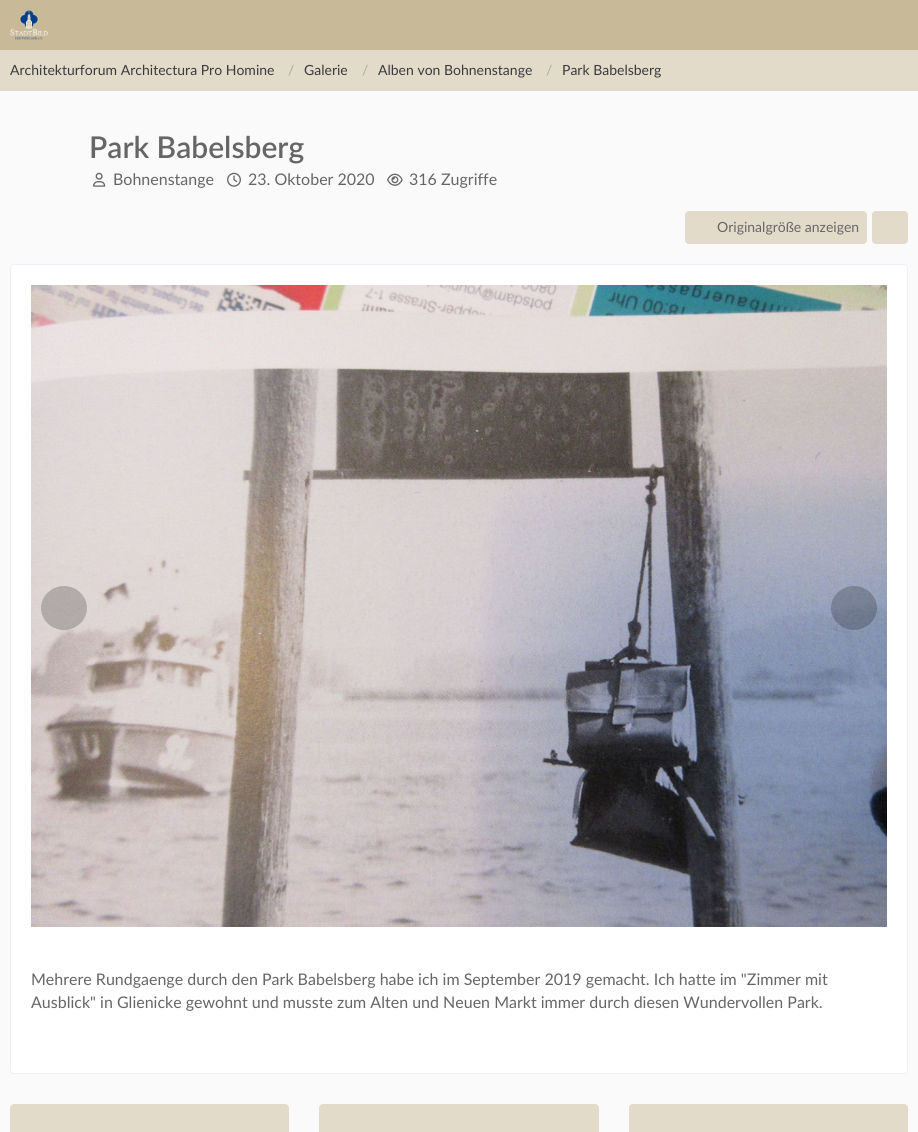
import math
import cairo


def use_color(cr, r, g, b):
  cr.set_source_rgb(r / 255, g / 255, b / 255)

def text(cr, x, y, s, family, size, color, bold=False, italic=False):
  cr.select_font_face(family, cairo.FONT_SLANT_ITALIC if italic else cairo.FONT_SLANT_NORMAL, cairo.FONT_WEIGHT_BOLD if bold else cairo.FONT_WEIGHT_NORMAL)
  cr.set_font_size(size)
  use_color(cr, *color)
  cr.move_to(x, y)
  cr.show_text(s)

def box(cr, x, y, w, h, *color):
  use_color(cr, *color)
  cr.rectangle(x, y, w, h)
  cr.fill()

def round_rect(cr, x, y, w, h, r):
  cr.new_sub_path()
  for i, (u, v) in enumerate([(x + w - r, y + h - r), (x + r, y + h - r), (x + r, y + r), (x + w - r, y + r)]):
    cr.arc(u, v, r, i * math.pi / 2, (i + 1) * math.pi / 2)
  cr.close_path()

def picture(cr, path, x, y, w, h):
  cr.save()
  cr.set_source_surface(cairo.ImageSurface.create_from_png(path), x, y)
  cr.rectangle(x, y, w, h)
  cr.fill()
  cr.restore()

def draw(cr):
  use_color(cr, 250, 250, 250)
  cr.paint()
  box(cr, 0, 0, 918, 50, 200, 185, 152)
  picture(cr, "img_01.png", 10, 10, 38, 30)
  box(cr, 0, 50, 918, 41, 227, 219, 202)
  picture(cr, "img_02.png", 93, 172, 13, 15)
  picture(cr, "img_03.png", 227, 172, 14, 15)
  picture(cr, "img_04.png", 387, 173, 16, 13)
  round_rect(cr, 685, 211, 182, 33, 4)
  cr.fill()
  round_rect(cr, 872, 211, 36, 33, 4)
  cr.fill()
  use_color(cr, 255, 255, 255)
  round_rect(cr, 10.5, 264.5, 897, 809, 3.5)
  cr.fill_preserve()
  use_color(cr, 236, 241, 247)
  cr.set_line_width(1)
  cr.stroke()
  picture(cr, "img_05.png", 31, 285, 856, 642)
  cr.set_source_rgba(0, 0, 0, 0.2)
  cr.new_path()
  cr.move_to(64, 586)
  cr.curve_to(76.5, 586, 87, 596, 87, 608)
  cr.curve_to(87, 620, 76.5, 630, 64, 630)
  cr.curve_to(51.5, 630, 41, 620, 41, 608)
  cr.curve_to(41, 596, 51.5, 586, 64, 586)
  cr.close_path()
  cr.fill()
  cr.new_path()
  cr.move_to(854, 586)
  cr.curve_to(866.5, 586, 877, 596, 877, 608)
  cr.curve_to(877, 620, 866.5, 630, 854, 630)
  cr.curve_to(841.5, 630, 831, 620, 831, 608)
  cr.curve_to(831, 596, 841.5, 586, 854, 586)
  cr.close_path()
  cr.fill()
  use_color(cr, 227, 219, 202)
  round_rect(cr, 10, 1104, 279, 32, 4)
  cr.fill()
  round_rect(cr, 319, 1104, 280, 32, 4)
  cr.fill()
  round_rect(cr, 629, 1104, 279, 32, 4)
  cr.fill()
  text(cr, 10, 75, "Architekturforum Architectura Pro Homine", "Lato", 14, (58, 58, 61))
  text(cr, 288, 75, "/", "Lato", 14, (170, 170, 170))
  text(cr, 304, 75, "Galerie", "Lato", 14, (58, 58, 61))
  text(cr, 362, 75, "/", "Lato", 14, (170, 170, 170))
  text(cr, 378, 75, "Alben von Bohnenstange", "Lato", 14, (58, 58, 61))
  text(cr, 546, 75, "/", "Lato", 14, (170, 170, 170))
  text(cr, 562, 75, "Park Babelsberg", "Lato", 14, (58, 58, 61))
  text(cr, 89, 158, "Park Babelsberg", "Lato SemiBold", 30, (102, 102, 102))
  text(cr, 113, 185, "Bohnenstange", "Lato", 16, (102, 102, 102))
  text(cr, 248, 185, "23. Oktober 2020", "Lato", 16, (102, 102, 102))
  text(cr, 409, 185, "316 Zugriffe", "Lato", 16, (102, 102, 102))
  text(cr, 717, 232, "Originalgröße anzeigen", "Lato", 14, (102, 102, 102))
  text(cr, 31, 985, "Mehrere Rundgaenge durch den Park Babelsberg habe ich im September 2019 gemacht. Ich hatte im \"Zimmer mit", "Lato", 16, (102, 102, 102))
  text(cr, 31, 1008, "Ausblick\" in Glienicke gewohnt und musste zum Alten und Neuen Markt immer durch diesen Wundervollen Park.", "Lato", 16, (102, 102, 102))


surface = cairo.ImageSurface(cairo.FORMAT_RGB24, 918, 1132)
cr = cairo.Context(surface)
options = cairo.FontOptions()
options.set_hint_metrics(cairo.HINT_METRICS_OFF)
options.set_hint_style(cairo.HINT_STYLE_NONE)
cr.set_font_options(options)
cr.set_miter_limit(4)
draw(cr)
surface.write_to_png("out.png")
